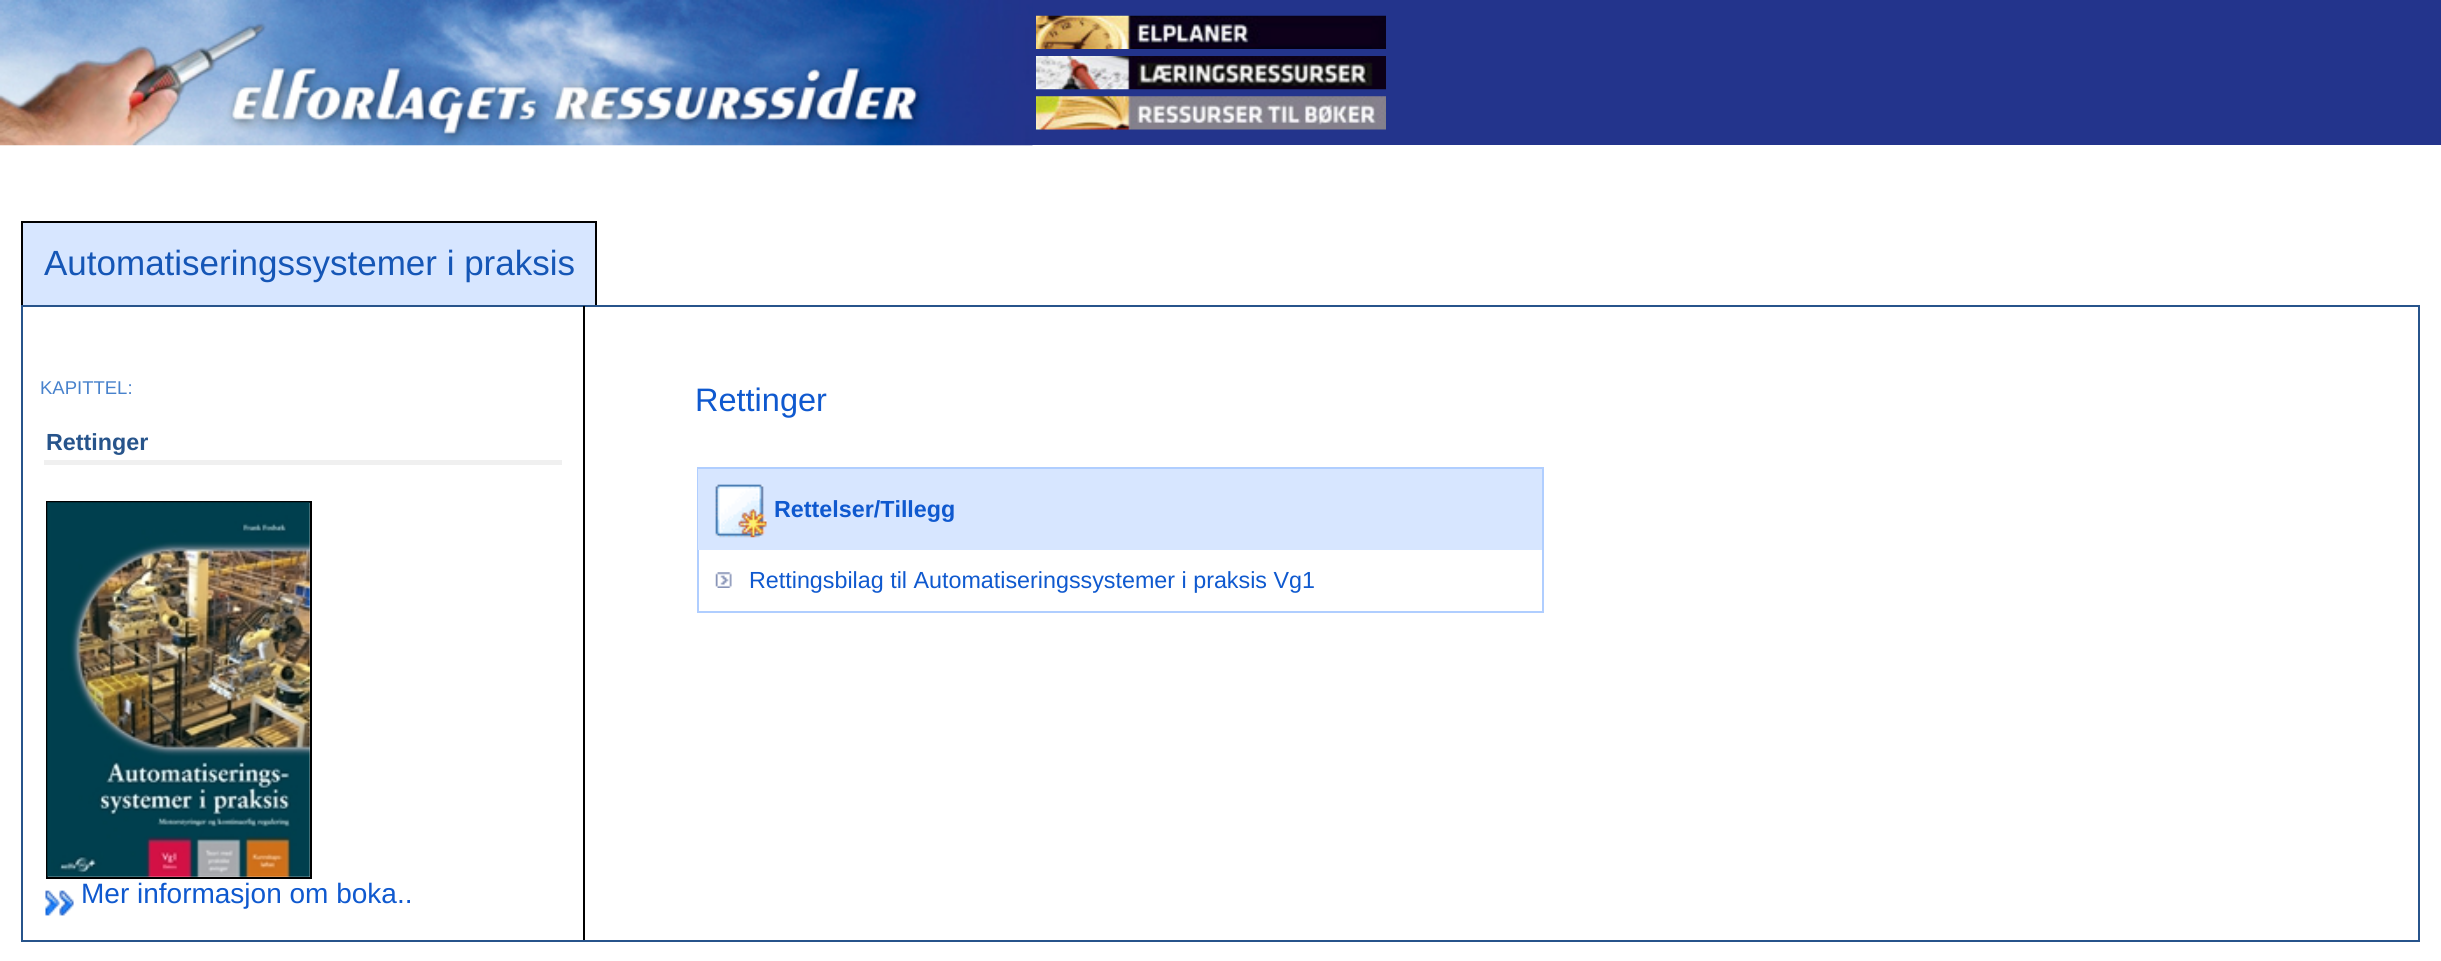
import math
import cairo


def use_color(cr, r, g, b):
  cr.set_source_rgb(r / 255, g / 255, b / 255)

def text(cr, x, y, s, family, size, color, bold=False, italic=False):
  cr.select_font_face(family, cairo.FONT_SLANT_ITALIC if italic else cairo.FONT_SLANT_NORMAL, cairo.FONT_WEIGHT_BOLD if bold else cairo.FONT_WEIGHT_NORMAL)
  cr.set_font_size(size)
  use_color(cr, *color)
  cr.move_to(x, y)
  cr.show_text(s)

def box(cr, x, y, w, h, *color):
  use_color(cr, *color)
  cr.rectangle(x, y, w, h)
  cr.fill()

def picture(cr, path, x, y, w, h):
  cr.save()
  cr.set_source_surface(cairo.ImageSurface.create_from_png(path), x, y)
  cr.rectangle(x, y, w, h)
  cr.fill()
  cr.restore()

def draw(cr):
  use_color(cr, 255, 255, 255)
  cr.paint()
  box(cr, 1032, 0, 1409, 145, 35, 52, 140)
  picture(cr, "img_01.png", 0, 0, 1033, 146)
  picture(cr, "img_02.png", 1036, 15, 350, 34)
  picture(cr, "img_03.png", 1036, 56, 350, 34)
  picture(cr, "img_04.png", 1036, 96, 350, 34)
  box(cr, 23, 223, 572, 82, 215, 230, 255)
  box(cr, 21, 221, 576, 2, 0, 0, 0)
  box(cr, 595, 221, 2, 84, 0, 0, 0)
  box(cr, 21, 221, 2, 84, 0, 0, 0)
  cr.rectangle(22, 306, 2397, 635)
  use_color(cr, 39, 84, 139)
  cr.stroke()
  box(cr, 583, 306, 2, 634, 0, 0, 0)
  box(cr, 44, 460, 518, 5, 240, 240, 240)
  cr.rectangle(47, 502, 264, 376)
  use_color(cr, 0, 0, 0)
  cr.stroke()
  picture(cr, "img_05.png", 47, 502, 263, 375)
  picture(cr, "img_06.png", 45, 890, 29, 26)
  cr.rectangle(698, 468, 845, 144)
  use_color(cr, 176, 206, 255)
  cr.stroke()
  box(cr, 698, 469, 844, 81, 215, 230, 255)
  picture(cr, "img_07.png", 715, 484, 52, 54)
  picture(cr, "img_08.png", 715, 572, 17, 16)
  text(cr, 44, 275, "Automatiseringssystemer i praksis", "Liberation Sans", 35, (21, 86, 182))
  text(cr, 40, 394, "KAPITTEL:", "Liberation Sans", 18.5, (72, 130, 204))
  text(cr, 46, 450, "Rettinger", "Liberation Sans", 23.3, (39, 84, 139), bold=True)
  text(cr, 81, 903, "Mer informasjon om boka..", "Liberation Sans", 28, (15, 89, 207))
  text(cr, 695, 411, "Rettinger", "Liberation Sans", 32.5, (15, 89, 207))
  text(cr, 774, 517, "Rettelser/Tillegg", "Liberation Sans", 23.3, (15, 89, 207), bold=True)
  text(cr, 749, 588, "Rettingsbilag til Automatiseringssystemer i praksis Vg1", "Liberation Sans", 23.3, (15, 89, 207))


surface = cairo.ImageSurface(cairo.FORMAT_RGB24, 2441, 961)
cr = cairo.Context(surface)
options = cairo.FontOptions()
options.set_hint_metrics(cairo.HINT_METRICS_OFF)
options.set_hint_style(cairo.HINT_STYLE_NONE)
cr.set_font_options(options)
cr.set_miter_limit(4)
draw(cr)
surface.write_to_png("out.png")
